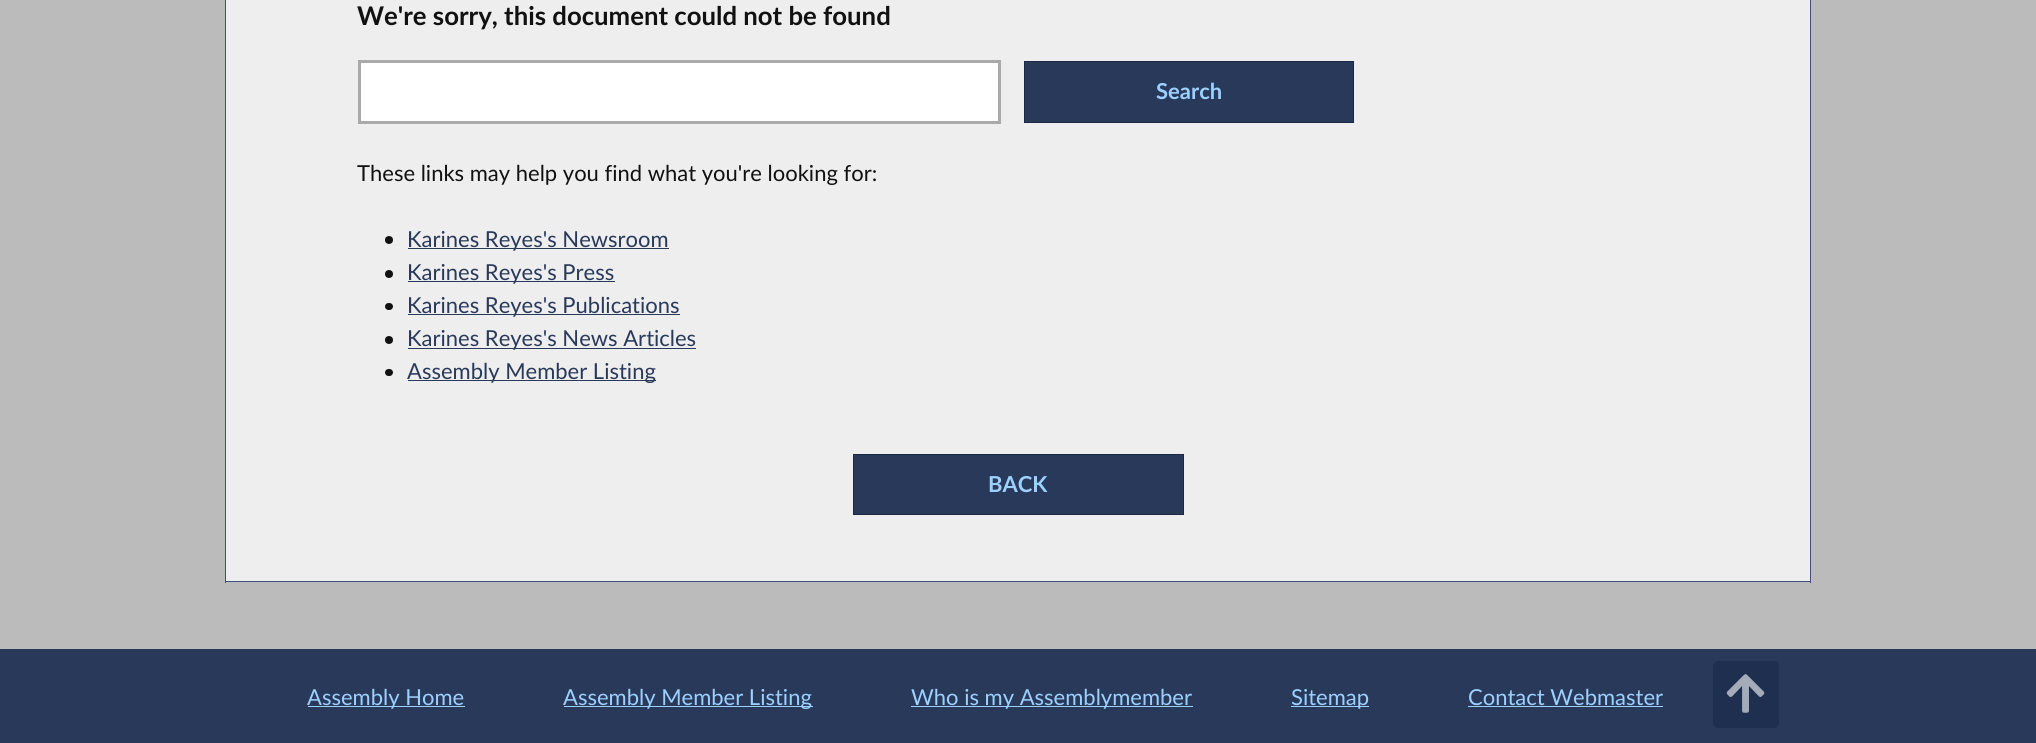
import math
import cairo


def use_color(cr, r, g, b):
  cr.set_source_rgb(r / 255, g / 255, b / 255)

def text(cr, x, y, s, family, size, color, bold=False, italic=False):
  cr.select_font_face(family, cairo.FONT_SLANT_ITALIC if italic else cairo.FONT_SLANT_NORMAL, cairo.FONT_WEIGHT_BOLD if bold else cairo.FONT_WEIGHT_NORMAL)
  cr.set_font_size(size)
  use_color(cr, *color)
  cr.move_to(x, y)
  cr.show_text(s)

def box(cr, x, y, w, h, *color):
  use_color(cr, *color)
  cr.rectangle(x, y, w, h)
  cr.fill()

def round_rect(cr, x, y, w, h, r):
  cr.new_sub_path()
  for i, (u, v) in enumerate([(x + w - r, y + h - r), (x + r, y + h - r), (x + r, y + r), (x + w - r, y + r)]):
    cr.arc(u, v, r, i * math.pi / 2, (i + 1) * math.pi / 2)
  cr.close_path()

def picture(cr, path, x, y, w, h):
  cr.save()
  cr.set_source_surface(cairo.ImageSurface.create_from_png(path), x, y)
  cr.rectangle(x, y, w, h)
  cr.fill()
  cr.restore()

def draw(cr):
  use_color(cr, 187, 187, 187)
  cr.paint()
  box(cr, 226, 0, 1584, 581, 238, 238, 238)
  box(cr, 1810, 0, 1, 583, 64, 81, 117)
  box(cr, 225, 581, 1586, 1, 64, 81, 117)
  box(cr, 225, 0, 1, 583, 64, 81, 117)
  use_color(cr, 255, 255, 255)
  cr.rectangle(359.5, 61.5, 640, 61)
  cr.fill_preserve()
  use_color(cr, 170, 170, 170)
  cr.set_line_width(3)
  cr.stroke()
  use_color(cr, 41, 57, 90)
  cr.rectangle(1024.5, 61.5, 329, 61)
  cr.fill_preserve()
  use_color(cr, 25, 40, 71)
  cr.set_line_width(1)
  cr.stroke()
  use_color(cr, 17, 17, 17)
  cr.arc(389, 240, 4, 0, 2 * math.pi)
  cr.fill()
  box(cr, 408, 248, 261, 1, 41, 57, 90)
  use_color(cr, 17, 17, 17)
  cr.arc(389, 274, 4, 0, 2 * math.pi)
  cr.fill()
  box(cr, 408, 281, 207, 1, 41, 57, 90)
  use_color(cr, 17, 17, 17)
  round_rect(cr, 385, 303, 8, 7, 3.5)
  cr.fill()
  box(cr, 408, 314, 272, 1, 41, 57, 90)
  use_color(cr, 17, 17, 17)
  cr.arc(389, 340, 4, 0, 2 * math.pi)
  cr.fill()
  box(cr, 408, 348, 288, 1, 41, 57, 90)
  use_color(cr, 17, 17, 17)
  round_rect(cr, 385, 369, 8, 7, 3.5)
  cr.fill()
  box(cr, 408, 380, 248, 1, 41, 57, 90)
  cr.rectangle(853.5, 454.5, 330, 60)
  cr.fill_preserve()
  use_color(cr, 25, 40, 71)
  cr.stroke()
  box(cr, 0, 649, 2036, 94, 41, 57, 90)
  box(cr, 308, 706, 157, 1, 156, 208, 255)
  box(cr, 564, 706, 249, 1, 156, 208, 255)
  box(cr, 911, 706, 282, 1, 156, 208, 255)
  box(cr, 1291, 706, 78, 1, 156, 208, 255)
  box(cr, 1468, 706, 195, 1, 156, 208, 255)
  use_color(cr, 31, 47, 79)
  round_rect(cr, 1713, 661, 66, 67, 5)
  cr.fill()
  picture(cr, "img_01.png", 1726, 674, 39, 39)
  text(cr, 357, 25, "We're sorry, this document could not be found", "Lato", 25.75, (17, 17, 17), bold=True)
  text(cr, 1156, 99, "Search", "Lato", 22, (156, 208, 255), bold=True)
  text(cr, 357, 181, "These links may help you find what you're looking for:", "Lato", 22, (17, 17, 17))
  text(cr, 407, 247, "Karines Reyes's Newsroom", "Lato", 22, (41, 57, 90))
  text(cr, 407, 280, "Karines Reyes's Press", "Lato", 22, (41, 57, 90))
  text(cr, 407, 313, "Karines Reyes's Publications", "Lato", 22, (41, 57, 90))
  text(cr, 407, 346, "Karines Reyes's News Articles", "Lato", 22, (41, 57, 90))
  text(cr, 407, 379, "Assembly Member Listing", "Lato", 22, (41, 57, 90))
  text(cr, 988, 492, "BACK", "Lato", 22, (156, 208, 255), bold=True)
  text(cr, 307, 705, "Assembly Home", "Lato", 22, (156, 208, 255))
  text(cr, 563, 705, "Assembly Member Listing", "Lato", 22, (156, 208, 255))
  text(cr, 911, 705, "Who is my Assemblymember", "Lato", 22, (156, 208, 255))
  text(cr, 1291, 705, "Sitemap", "Lato", 22, (156, 208, 255))
  text(cr, 1468, 705, "Contact Webmaster", "Lato", 22, (156, 208, 255))


surface = cairo.ImageSurface(cairo.FORMAT_RGB24, 2036, 743)
cr = cairo.Context(surface)
options = cairo.FontOptions()
options.set_hint_metrics(cairo.HINT_METRICS_OFF)
options.set_hint_style(cairo.HINT_STYLE_NONE)
cr.set_font_options(options)
cr.set_miter_limit(4)
draw(cr)
surface.write_to_png("out.png")
